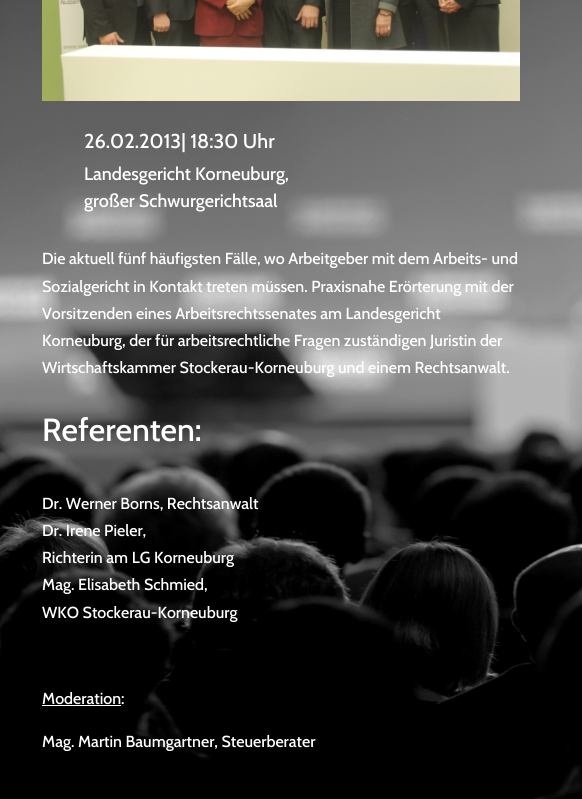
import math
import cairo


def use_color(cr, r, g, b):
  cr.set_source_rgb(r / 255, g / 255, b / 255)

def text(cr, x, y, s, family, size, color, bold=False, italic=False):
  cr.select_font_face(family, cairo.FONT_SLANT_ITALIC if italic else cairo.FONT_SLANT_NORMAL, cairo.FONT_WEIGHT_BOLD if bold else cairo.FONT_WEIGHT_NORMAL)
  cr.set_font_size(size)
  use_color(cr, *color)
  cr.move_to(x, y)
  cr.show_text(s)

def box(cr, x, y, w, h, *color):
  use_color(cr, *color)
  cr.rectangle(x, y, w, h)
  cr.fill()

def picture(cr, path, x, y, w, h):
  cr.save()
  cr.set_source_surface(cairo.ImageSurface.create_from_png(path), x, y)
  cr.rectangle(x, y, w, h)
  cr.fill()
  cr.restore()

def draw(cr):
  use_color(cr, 255, 255, 255)
  cr.paint()
  picture(cr, "img_01.png", 0, 0, 582, 799)
  picture(cr, "img_02.png", 42, 0, 478, 101)
  box(cr, 42, 705, 79, 1, 255, 255, 255)
  text(cr, 84, 148, "26.02.2013| 18:30 Uhr", "Cabin Medium", 20, (255, 255, 255))
  text(cr, 84, 180, "Landesgericht Korneuburg,", "Cabin Medium", 18, (255, 255, 255))
  text(cr, 84, 207, "großer Schwurgerichtsaal", "Cabin Medium", 18, (255, 255, 255))
  text(cr, 42, 264, "Die aktuell fünf häufigsten Fälle, wo Arbeitgeber mit dem Arbeits- und", "Cabin Medium", 16, (255, 255, 255))
  text(cr, 42, 292, "Sozialgericht in Kontakt treten müssen. Praxisnahe Erörterung mit der", "Cabin Medium", 16, (255, 255, 255))
  text(cr, 42, 319, "Vorsitzenden eines Arbeitsrechtssenates am Landesgericht", "Cabin Medium", 16, (255, 255, 255))
  text(cr, 42, 346, "Korneuburg, der für arbeitsrechtliche Fragen zuständigen Juristin der", "Cabin Medium", 16, (255, 255, 255))
  text(cr, 42, 373, "Wirtschaftskammer Stockerau-Korneuburg und einem Rechtsanwalt.", "Cabin Medium", 16, (255, 255, 255))
  text(cr, 42, 441, "Referenten:", "Cabin Medium", 32, (255, 255, 255))
  text(cr, 42, 509, "Dr. Werner Borns, Rechtsanwalt", "Cabin Medium", 16, (255, 255, 255))
  text(cr, 42, 536, "Dr. Irene Pieler,", "Cabin Medium", 16, (255, 255, 255))
  text(cr, 42, 563, "Richterin am LG Korneuburg", "Cabin Medium", 16, (255, 255, 255))
  text(cr, 42, 590, "Mag. Elisabeth Schmied,", "Cabin Medium", 16, (255, 255, 255))
  text(cr, 42, 618, "WKO Stockerau-Korneuburg", "Cabin Medium", 16, (255, 255, 255))
  text(cr, 42, 704, "Moderation:", "Cabin Medium", 16, (255, 255, 255))
  text(cr, 42, 747, "Mag. Martin Baumgartner, Steuerberater", "Cabin Medium", 16, (255, 255, 255))


surface = cairo.ImageSurface(cairo.FORMAT_RGB24, 582, 799)
cr = cairo.Context(surface)
options = cairo.FontOptions()
options.set_hint_metrics(cairo.HINT_METRICS_OFF)
options.set_hint_style(cairo.HINT_STYLE_NONE)
cr.set_font_options(options)
cr.set_miter_limit(4)
draw(cr)
surface.write_to_png("out.png")
